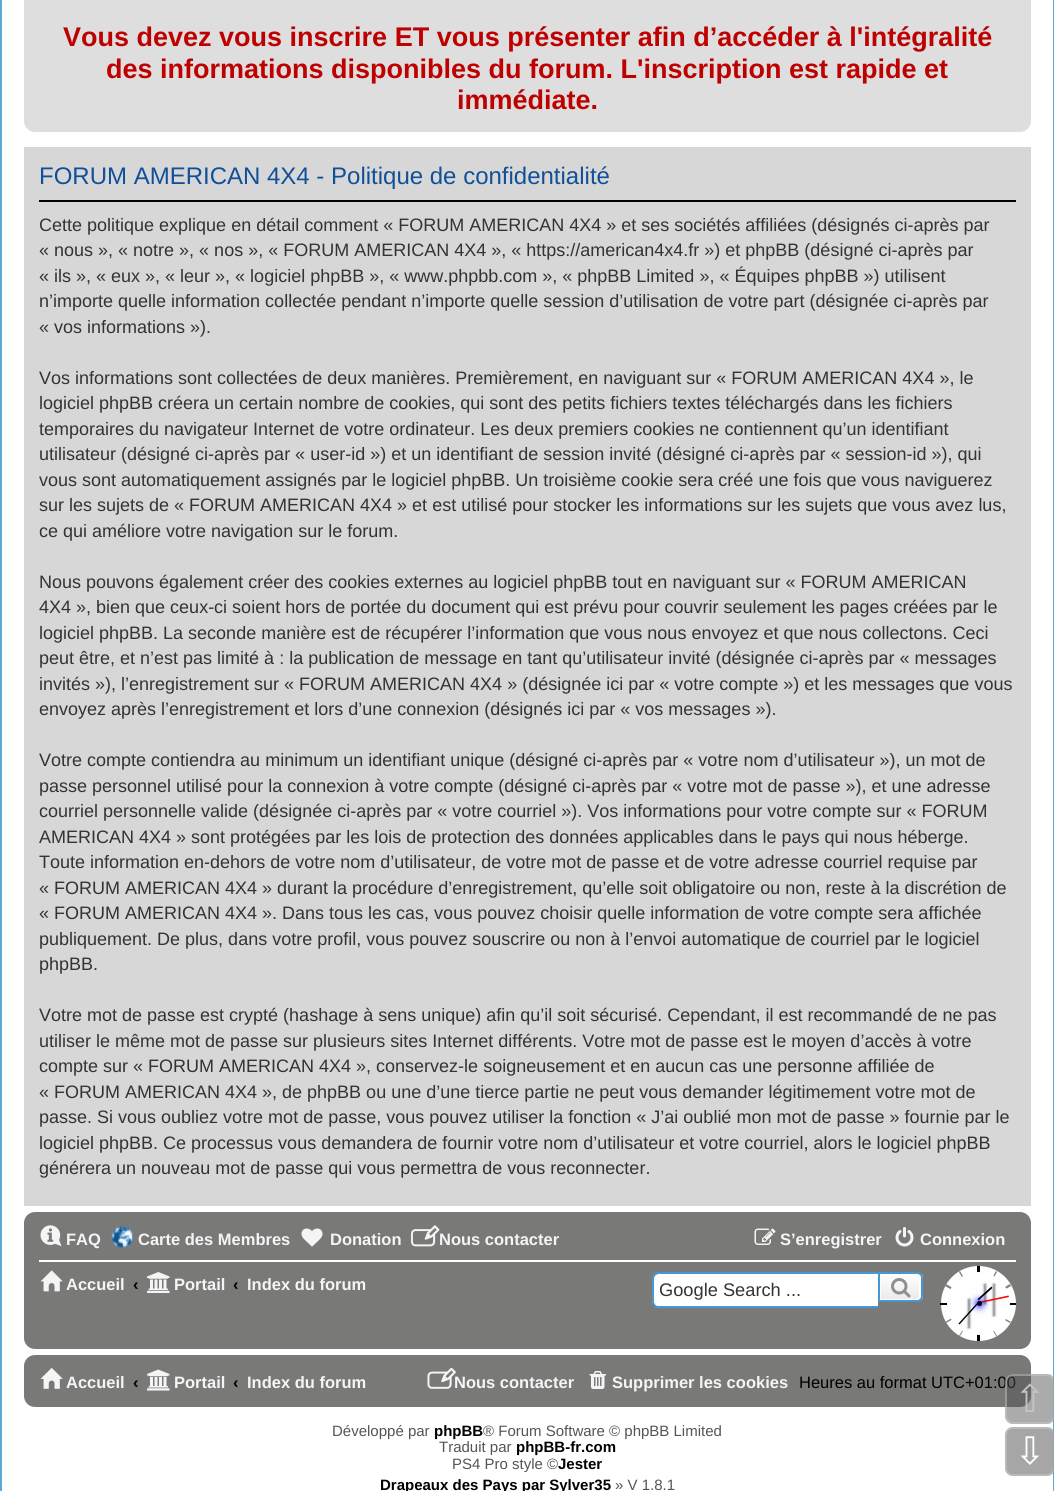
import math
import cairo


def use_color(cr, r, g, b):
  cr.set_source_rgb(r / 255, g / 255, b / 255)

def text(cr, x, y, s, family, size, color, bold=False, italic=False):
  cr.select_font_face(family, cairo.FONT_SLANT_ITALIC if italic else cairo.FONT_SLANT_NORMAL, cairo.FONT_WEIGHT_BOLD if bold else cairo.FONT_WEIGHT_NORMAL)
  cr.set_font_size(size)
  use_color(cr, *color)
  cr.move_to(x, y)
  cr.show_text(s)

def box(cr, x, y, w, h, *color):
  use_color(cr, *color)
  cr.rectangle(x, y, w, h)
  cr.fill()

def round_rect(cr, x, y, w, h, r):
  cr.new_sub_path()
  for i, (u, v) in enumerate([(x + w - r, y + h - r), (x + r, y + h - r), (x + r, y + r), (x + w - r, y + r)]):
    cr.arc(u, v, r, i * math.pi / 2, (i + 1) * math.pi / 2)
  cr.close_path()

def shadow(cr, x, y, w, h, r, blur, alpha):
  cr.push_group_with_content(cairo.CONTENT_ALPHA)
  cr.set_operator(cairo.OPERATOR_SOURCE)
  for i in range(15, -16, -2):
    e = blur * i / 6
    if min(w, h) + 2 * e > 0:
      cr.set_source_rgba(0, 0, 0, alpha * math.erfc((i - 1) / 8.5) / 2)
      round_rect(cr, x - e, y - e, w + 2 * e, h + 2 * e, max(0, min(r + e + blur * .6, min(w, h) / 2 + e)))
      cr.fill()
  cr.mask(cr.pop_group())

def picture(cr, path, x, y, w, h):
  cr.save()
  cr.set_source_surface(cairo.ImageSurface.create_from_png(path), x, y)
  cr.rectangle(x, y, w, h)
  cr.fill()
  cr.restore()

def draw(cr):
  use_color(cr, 255, 255, 255)
  cr.paint()
  cr.rectangle(1, -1, 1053, 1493)
  use_color(cr, 95, 168, 211)
  cr.stroke()
  use_color(cr, 222, 222, 222)
  round_rect(cr, 24, -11, 1007, 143, 11)
  cr.fill()
  box(cr, 24, 147, 1007, 1059, 215, 215, 215)
  box(cr, 39, 200, 977, 2, 0, 0, 0)
  use_color(cr, 121, 122, 120)
  round_rect(cr, 24, 1212, 1007, 137, 11)
  cr.fill()
  picture(cr, "img_01.png", 40, 1225, 22, 22)
  picture(cr, "img_02.png", 111, 1226, 23, 22)
  picture(cr, "img_03.png", 301, 1228, 22, 19)
  picture(cr, "img_04.png", 411, 1225, 29, 22)
  picture(cr, "img_05.png", 754, 1228, 22, 17)
  picture(cr, "img_06.png", 895, 1227, 19, 20)
  box(cr, 39, 1260, 977, 2, 255, 255, 255)
  picture(cr, "img_07.png", 40, 1270, 23, 22)
  picture(cr, "img_08.png", 147, 1272, 23, 21)
  cr.new_path()
  cr.move_to(659, 1274)
  cr.line_to(878, 1274)
  cr.line_to(878, 1307)
  cr.line_to(659, 1307)
  cr.curve_to(656, 1307, 654, 1305, 654, 1302)
  cr.line_to(654, 1279)
  cr.curve_to(654, 1276, 656, 1274, 659, 1274)
  cr.close_path()
  cr.fill()
  use_color(cr, 68, 152, 212)
  cr.set_fill_rule(cairo.FILL_RULE_EVEN_ODD)
  cr.new_path()
  cr.move_to(658, 1272)
  cr.line_to(878, 1272)
  cr.line_to(878, 1308)
  cr.line_to(658, 1308)
  cr.curve_to(655, 1308, 652, 1305, 652, 1302)
  cr.line_to(652, 1278)
  cr.curve_to(652, 1275, 655, 1272, 658, 1272)
  cr.close_path()
  cr.move_to(658, 1274)
  cr.line_to(878, 1274)
  cr.line_to(878, 1306)
  cr.line_to(658, 1306)
  cr.curve_to(656, 1306, 654, 1304, 654, 1302)
  cr.line_to(654, 1278)
  cr.curve_to(654, 1276, 656, 1274, 658, 1274)
  cr.close_path()
  cr.fill()
  cr.save()
  cr.set_fill_rule(cairo.FILL_RULE_WINDING)
  cr.new_path()
  cr.move_to(878, 1272)
  cr.line_to(917, 1272)
  cr.curve_to(920.5, 1272, 923, 1274.5, 923, 1278)
  cr.line_to(923, 1296)
  cr.curve_to(923, 1299.5, 920.5, 1302, 917, 1302)
  cr.line_to(878, 1302)
  cr.close_path()
  cr.clip()
  gradient = cairo.LinearGradient(900, 1274, 900, 1301)
  gradient.add_color_stop_rgba(0, 1, 1, 1, 1)
  gradient.add_color_stop_rgba(1, 0.914, 0.914, 0.914, 1)
  cr.set_source(gradient)
  cr.rectangle(881, 1274, 42, 27)
  cr.fill()
  cr.restore()
  cr.new_path()
  cr.move_to(880, 1275)
  cr.line_to(916, 1275)
  cr.curve_to(918, 1275, 920, 1277, 920, 1279)
  cr.line_to(920, 1296)
  cr.curve_to(920, 1298, 918, 1300, 916, 1300)
  cr.line_to(880, 1300)
  cr.close_path()
  use_color(cr, 255, 255, 255)
  cr.stroke()
  cr.new_path()
  cr.move_to(879, 1273)
  cr.line_to(917, 1273)
  cr.curve_to(920, 1273, 922, 1275, 922, 1278)
  cr.line_to(922, 1296)
  cr.curve_to(922, 1299, 920, 1301, 917, 1301)
  cr.line_to(879, 1301)
  cr.close_path()
  use_color(cr, 68, 152, 212)
  cr.stroke()
  picture(cr, "img_09.png", 891, 1278, 20, 20)
  use_color(cr, 255, 255, 255)
  cr.arc(978.5, 1303.5, 37.5, 0, 2 * math.pi)
  cr.fill()
  box(cr, 977, 1266, 3, 75, 0, 0, 0)
  use_color(cr, 128, 128, 128)
  cr.set_fill_rule(cairo.FILL_RULE_WINDING)
  cr.new_path()
  cr.move_to(996, 1271)
  cr.line_to(997, 1272)
  cr.line_to(960, 1336)
  cr.line_to(959, 1336)
  cr.close_path()
  cr.fill()
  cr.new_path()
  cr.move_to(1010, 1284)
  cr.line_to(1011, 1286)
  cr.line_to(946, 1323)
  cr.line_to(945, 1322)
  cr.close_path()
  cr.fill()
  cr.new_path()
  cr.move_to(1011, 1322)
  cr.line_to(1010, 1323)
  cr.line_to(945, 1286)
  cr.line_to(946, 1284)
  cr.close_path()
  cr.fill()
  cr.new_path()
  cr.move_to(997, 1336)
  cr.line_to(996, 1336)
  cr.line_to(959, 1272)
  cr.line_to(960, 1271)
  cr.close_path()
  cr.fill()
  box(cr, 940, 1303, 76, 2, 0, 0, 0)
  use_color(cr, 255, 255, 255)
  cr.arc(978.5, 1303.5, 31.5, 0, 2 * math.pi)
  cr.fill()
  use_color(cr, 128, 128, 128)
  shadow(cr, 984, 1284, 2, 20, 0, 1, 1)
  use_color(cr, 0, 0, 0)
  cr.new_path()
  cr.move_to(991.5, 1286.5)
  cr.line_to(992.5, 1288)
  cr.line_to(978.5, 1300.5)
  cr.line_to(977.5, 1299)
  cr.close_path()
  cr.fill()
  use_color(cr, 128, 128, 128)
  shadow(cr, 993, 1284, 2, 32, 0, 1, 1)
  shadow(cr, 968, 1299, 2, 29, 0, 1, 1)
  use_color(cr, 0, 0, 0)
  cr.new_path()
  cr.move_to(959.5, 1324.5)
  cr.line_to(958.5, 1323.5)
  cr.line_to(977.5, 1302.5)
  cr.line_to(978.5, 1303.5)
  cr.close_path()
  cr.fill()
  use_color(cr, 255, 0, 0)
  cr.new_path()
  cr.move_to(1008.5, 1295.5)
  cr.line_to(1009, 1297)
  cr.line_to(978, 1303.5)
  cr.line_to(978, 1302)
  cr.close_path()
  cr.fill()
  use_color(cr, 0, 0, 255)
  shadow(cr, 977, 1301, 5, 5, 2.5, 4, 1)
  use_color(cr, 0, 0, 0)
  cr.arc(979.5, 1303.5, 2.5, 0, 2 * math.pi)
  cr.fill()
  use_color(cr, 121, 122, 120)
  round_rect(cr, 24, 1355, 1007, 52, 11)
  cr.fill()
  picture(cr, "img_10.png", 40, 1367, 23, 22)
  picture(cr, "img_11.png", 147, 1369, 23, 22)
  picture(cr, "img_12.png", 427, 1367, 29, 22)
  picture(cr, "img_13.png", 589, 1371, 17, 18)
  cr.set_source_rgba(0.31, 0.31, 0.31, 0.5)
  round_rect(cr, 1005, 1427, 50, 49, 8)
  cr.fill()
  round_rect(cr, 1006, 1428, 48, 47, 7)
  cr.set_source_rgba(0.8, 0.8, 0.8, 0.5)
  cr.stroke()
  text(cr, 63, 46, "Vous devez vous inscrire ET vous présenter afin d’accéder à l'intégralité", "Liberation Sans", 27, (191, 0, 0), bold=True)
  text(cr, 106, 78, "des informations disponibles du forum. L'inscription est rapide et", "Liberation Sans", 27, (191, 0, 0), bold=True)
  text(cr, 457, 109, "immédiate.", "Liberation Sans", 27, (191, 0, 0), bold=True)
  text(cr, 39, 184, "FORUM AMERICAN 4X4 - Politique de confidentialité", "Liberation Sans", 24, (17, 80, 152))
  text(cr, 39, 231, "Cette politique explique en détail comment « FORUM AMERICAN 4X4 » et ses sociétés affiliées (désignés ci-après par", "Liberation Sans", 18, (51, 51, 51))
  text(cr, 39, 256, "« nous », « notre », « nos », « FORUM AMERICAN 4X4 », « https://american4x4.fr ») et phpBB (désigné ci-après par", "Liberation Sans", 18, (51, 51, 51))
  text(cr, 39, 282, "« ils », « eux », « leur », « logiciel phpBB », « www.phpbb.com », « phpBB Limited », « Équipes phpBB ») utilisent", "Liberation Sans", 18, (51, 51, 51))
  text(cr, 39, 307, "n’importe quelle information collectée pendant n’importe quelle session d’utilisation de votre part (désignée ci-après par", "Liberation Sans", 18, (51, 51, 51))
  text(cr, 39, 333, "« vos informations »).", "Liberation Sans", 18, (51, 51, 51))
  text(cr, 39, 384, "Vos informations sont collectées de deux manières. Premièrement, en naviguant sur « FORUM AMERICAN 4X4 », le", "Liberation Sans", 18, (51, 51, 51))
  text(cr, 39, 409, "logiciel phpBB créera un certain nombre de cookies, qui sont des petits fichiers textes téléchargés dans les fichiers", "Liberation Sans", 18, (51, 51, 51))
  text(cr, 39, 435, "temporaires du navigateur Internet de votre ordinateur. Les deux premiers cookies ne contiennent qu’un identifiant", "Liberation Sans", 18, (51, 51, 51))
  text(cr, 39, 460, "utilisateur (désigné ci-après par « user-id ») et un identifiant de session invité (désigné ci-après par « session-id »), qui", "Liberation Sans", 18, (51, 51, 51))
  text(cr, 39, 486, "vous sont automatiquement assignés par le logiciel phpBB. Un troisième cookie sera créé une fois que vous naviguerez", "Liberation Sans", 18, (51, 51, 51))
  text(cr, 39, 511, "sur les sujets de « FORUM AMERICAN 4X4 » et est utilisé pour stocker les informations sur les sujets que vous avez lus,", "Liberation Sans", 18, (51, 51, 51))
  text(cr, 39, 537, "ce qui améliore votre navigation sur le forum.", "Liberation Sans", 18, (51, 51, 51))
  text(cr, 39, 588, "Nous pouvons également créer des cookies externes au logiciel phpBB tout en naviguant sur « FORUM AMERICAN", "Liberation Sans", 18, (51, 51, 51))
  text(cr, 39, 613, "4X4 », bien que ceux-ci soient hors de portée du document qui est prévu pour couvrir seulement les pages créées par le", "Liberation Sans", 18, (51, 51, 51))
  text(cr, 39, 639, "logiciel phpBB. La seconde manière est de récupérer l’information que vous nous envoyez et que nous collectons. Ceci", "Liberation Sans", 18, (51, 51, 51))
  text(cr, 39, 664, "peut être, et n’est pas limité à : la publication de message en tant qu’utilisateur invité (désignée ci-après par « messages", "Liberation Sans", 18, (51, 51, 51))
  text(cr, 39, 690, "invités »), l’enregistrement sur « FORUM AMERICAN 4X4 » (désignée ici par « votre compte ») et les messages que vous", "Liberation Sans", 18, (51, 51, 51))
  text(cr, 39, 715, "envoyez après l’enregistrement et lors d’une connexion (désignés ici par « vos messages »).", "Liberation Sans", 18, (51, 51, 51))
  text(cr, 39, 766, "Votre compte contiendra au minimum un identifiant unique (désigné ci-après par « votre nom d’utilisateur »), un mot de", "Liberation Sans", 18, (51, 51, 51))
  text(cr, 39, 792, "passe personnel utilisé pour la connexion à votre compte (désigné ci-après par « votre mot de passe »), et une adresse", "Liberation Sans", 18, (51, 51, 51))
  text(cr, 39, 817, "courriel personnelle valide (désignée ci-après par « votre courriel »). Vos informations pour votre compte sur « FORUM", "Liberation Sans", 18, (51, 51, 51))
  text(cr, 39, 843, "AMERICAN 4X4 » sont protégées par les lois de protection des données applicables dans le pays qui nous héberge.", "Liberation Sans", 18, (51, 51, 51))
  text(cr, 39, 868, "Toute information en-dehors de votre nom d’utilisateur, de votre mot de passe et de votre adresse courriel requise par", "Liberation Sans", 18, (51, 51, 51))
  text(cr, 39, 894, "« FORUM AMERICAN 4X4 » durant la procédure d’enregistrement, qu’elle soit obligatoire ou non, reste à la discrétion de", "Liberation Sans", 18, (51, 51, 51))
  text(cr, 39, 919, "« FORUM AMERICAN 4X4 ». Dans tous les cas, vous pouvez choisir quelle information de votre compte sera affichée", "Liberation Sans", 18, (51, 51, 51))
  text(cr, 39, 945, "publiquement. De plus, dans votre profil, vous pouvez souscrire ou non à l’envoi automatique de courriel par le logiciel", "Liberation Sans", 18, (51, 51, 51))
  text(cr, 39, 970, "phpBB.", "Liberation Sans", 18, (51, 51, 51))
  text(cr, 39, 1021, "Votre mot de passe est crypté (hashage à sens unique) afin qu’il soit sécurisé. Cependant, il est recommandé de ne pas", "Liberation Sans", 18, (51, 51, 51))
  text(cr, 39, 1047, "utiliser le même mot de passe sur plusieurs sites Internet différents. Votre mot de passe est le moyen d’accès à votre", "Liberation Sans", 18, (51, 51, 51))
  text(cr, 39, 1072, "compte sur « FORUM AMERICAN 4X4 », conservez-le soigneusement et en aucun cas une personne affiliée de", "Liberation Sans", 18, (51, 51, 51))
  text(cr, 39, 1098, "« FORUM AMERICAN 4X4 », de phpBB ou une d’une tierce partie ne peut vous demander légitimement votre mot de", "Liberation Sans", 18, (51, 51, 51))
  text(cr, 39, 1123, "passe. Si vous oubliez votre mot de passe, vous pouvez utiliser la fonction « J’ai oublié mon mot de passe » fournie par le", "Liberation Sans", 18, (51, 51, 51))
  text(cr, 39, 1149, "logiciel phpBB. Ce processus vous demandera de fournir votre nom d’utilisateur et votre courriel, alors le logiciel phpBB", "Liberation Sans", 18, (51, 51, 51))
  text(cr, 39, 1174, "générera un nouveau mot de passe qui vous permettra de vous reconnecter.", "Liberation Sans", 18, (51, 51, 51))
  text(cr, 66, 1245, "FAQ", "Liberation Sans", 16.5, (245, 245, 245), bold=True)
  text(cr, 138, 1245, "Carte des Membres", "Liberation Sans", 16.5, (245, 245, 245), bold=True)
  text(cr, 330, 1245, "Donation", "Liberation Sans", 16.5, (245, 245, 245), bold=True)
  text(cr, 439, 1245, "Nous contacter", "Liberation Sans", 16.5, (245, 245, 245), bold=True)
  text(cr, 780, 1245, "S’enregistrer", "Liberation Sans", 16.5, (245, 245, 245), bold=True)
  text(cr, 920, 1245, "Connexion", "Liberation Sans", 16.5, (245, 245, 245), bold=True)
  text(cr, 66, 1290, "Accueil", "Liberation Sans", 16.5, (245, 245, 245), bold=True)
  text(cr, 133, 1290, "‹", "Liberation Sans", 16.5, (0, 0, 0), bold=True)
  text(cr, 174, 1290, "Portail", "Liberation Sans", 16.5, (245, 245, 245), bold=True)
  text(cr, 233, 1290, "‹", "Liberation Sans", 16.5, (0, 0, 0), bold=True)
  text(cr, 247, 1290, "Index du forum", "Liberation Sans", 16.5, (245, 245, 245), bold=True)
  text(cr, 659, 1296, "Google Search ...", "Liberation Sans", 18.25, (51, 51, 51))
  text(cr, 66, 1388, "Accueil", "Liberation Sans", 16.5, (245, 245, 245), bold=True)
  text(cr, 133, 1388, "‹", "Liberation Sans", 16.5, (0, 0, 0), bold=True)
  text(cr, 174, 1388, "Portail", "Liberation Sans", 16.5, (245, 245, 245), bold=True)
  text(cr, 233, 1388, "‹", "Liberation Sans", 16.5, (0, 0, 0), bold=True)
  text(cr, 247, 1388, "Index du forum", "Liberation Sans", 16.5, (245, 245, 245), bold=True)
  text(cr, 454, 1388, "Nous contacter", "Liberation Sans", 16.5, (245, 245, 245), bold=True)
  text(cr, 612, 1388, "Supprimer les cookies", "Liberation Sans", 16.5, (245, 245, 245), bold=True)
  text(cr, 799, 1388, "Heures au format UTC+01:00", "Liberation Sans", 16.5, (0, 0, 0))
  text(cr, 332, 1436, "Développé par", "Liberation Sans", 15, (85, 85, 85))
  text(cr, 434, 1436, "phpBB", "Liberation Sans", 15, (0, 0, 0), bold=True)
  text(cr, 483, 1436, "® Forum Software © phpBB Limited", "Liberation Sans", 15, (85, 85, 85))
  text(cr, 439, 1452, "Traduit par", "Liberation Sans", 15, (85, 85, 85))
  text(cr, 516, 1452, "phpBB-fr.com", "Liberation Sans", 15, (0, 0, 0), bold=True)
  text(cr, 452, 1469, "PS4 Pro style ©", "Liberation Sans", 15, (85, 85, 85))
  text(cr, 558, 1469, "Jester", "Liberation Sans", 15, (0, 0, 0), bold=True)
  text(cr, 380, 1490, "Drapeaux des Pays par Sylver35", "Liberation Sans", 15, (0, 0, 0), bold=True)
  text(cr, 615, 1490, "» V 1.8.1", "Liberation Sans", 15, (85, 85, 85))
  cr.set_source_rgba(0.31, 0.31, 0.31, 0.48)
  round_rect(cr, 1005, 1374, 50, 50, 8)
  cr.fill()
  round_rect(cr, 1006, 1375, 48, 48, 7)
  cr.set_source_rgba(0.8, 0.8, 0.8, 0.48)
  cr.stroke()
  text(cr, 1014, 1412, "⇧", "DejaVu Sans", 38, (196, 196, 196))
  text(cr, 1014, 1464, "⇩", "DejaVu Sans", 38, (255, 255, 255))


surface = cairo.ImageSurface(cairo.FORMAT_RGB24, 1054, 1491)
cr = cairo.Context(surface)
options = cairo.FontOptions()
options.set_hint_metrics(cairo.HINT_METRICS_OFF)
options.set_hint_style(cairo.HINT_STYLE_NONE)
cr.set_font_options(options)
cr.set_miter_limit(4)
draw(cr)
surface.write_to_png("out.png")
